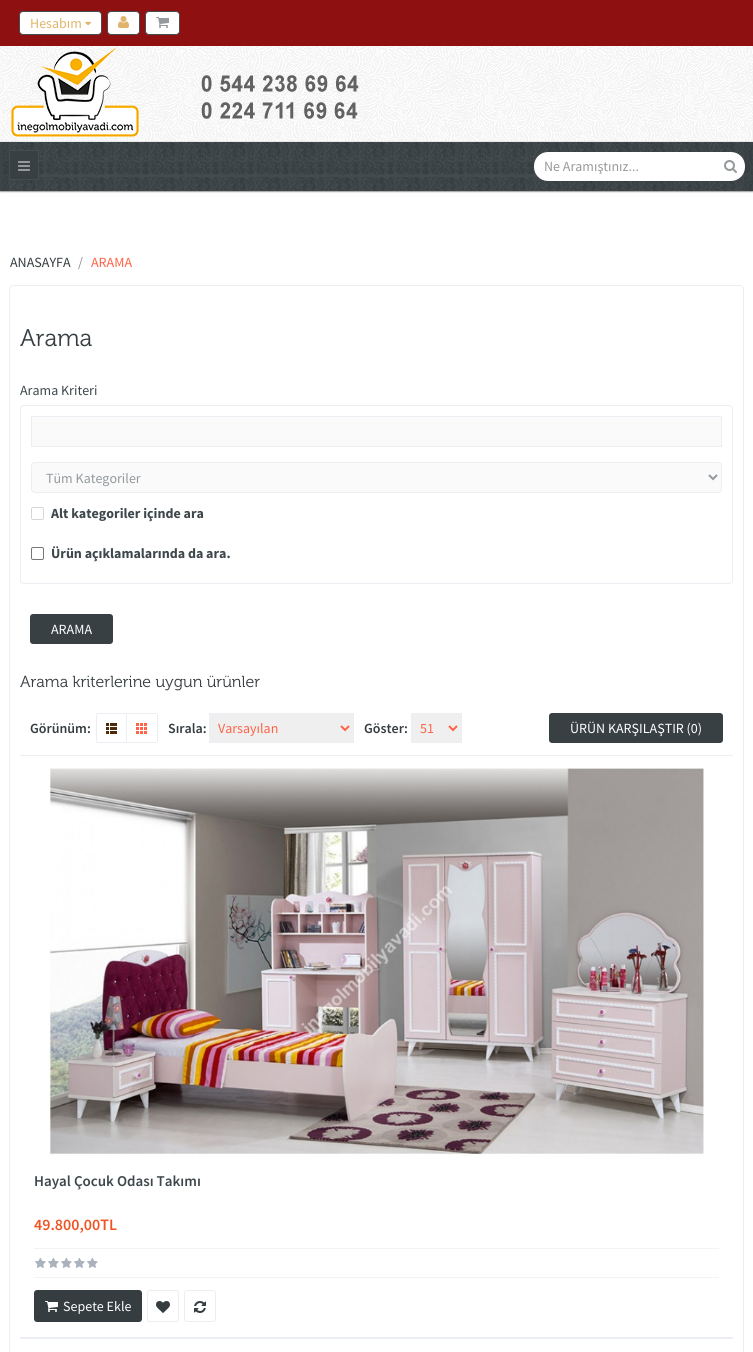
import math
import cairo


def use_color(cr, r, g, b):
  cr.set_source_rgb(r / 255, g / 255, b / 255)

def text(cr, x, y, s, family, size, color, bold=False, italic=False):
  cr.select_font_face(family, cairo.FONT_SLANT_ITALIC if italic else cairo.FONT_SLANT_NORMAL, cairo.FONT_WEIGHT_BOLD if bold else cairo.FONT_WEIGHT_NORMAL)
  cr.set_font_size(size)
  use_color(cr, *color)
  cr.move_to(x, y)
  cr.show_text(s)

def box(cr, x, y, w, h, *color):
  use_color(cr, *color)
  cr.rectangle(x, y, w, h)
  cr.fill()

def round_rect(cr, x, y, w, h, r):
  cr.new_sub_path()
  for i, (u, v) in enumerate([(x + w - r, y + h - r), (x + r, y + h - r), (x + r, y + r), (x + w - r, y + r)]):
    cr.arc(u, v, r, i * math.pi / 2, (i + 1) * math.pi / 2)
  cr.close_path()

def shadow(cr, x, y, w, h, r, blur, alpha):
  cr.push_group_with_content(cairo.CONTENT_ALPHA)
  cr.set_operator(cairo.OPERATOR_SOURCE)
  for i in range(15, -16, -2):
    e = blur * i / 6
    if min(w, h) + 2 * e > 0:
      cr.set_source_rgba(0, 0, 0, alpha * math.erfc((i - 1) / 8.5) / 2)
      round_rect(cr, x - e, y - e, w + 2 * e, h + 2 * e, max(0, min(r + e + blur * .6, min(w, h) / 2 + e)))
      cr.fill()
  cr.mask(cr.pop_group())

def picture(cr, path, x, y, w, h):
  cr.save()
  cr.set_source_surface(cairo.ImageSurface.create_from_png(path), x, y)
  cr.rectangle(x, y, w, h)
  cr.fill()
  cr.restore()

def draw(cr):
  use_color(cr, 255, 255, 255)
  cr.paint()
  cr.save()
  cr.rectangle(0, 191, 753, 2)
  cr.clip()
  use_color(cr, 18, 18, 18)
  shadow(cr, 0, 0, 753, 191, 0, 1, 1)
  cr.restore()
  box(cr, 0, 0, 753, 46, 143, 16, 16)
  use_color(cr, 255, 255, 255)
  round_rect(cr, 19.5, 11.5, 82, 23, 3.5)
  cr.fill_preserve()
  use_color(cr, 69, 77, 80)
  cr.set_line_width(1)
  cr.stroke()
  picture(cr, "img_01.png", 85, 21, 7, 5)
  use_color(cr, 255, 255, 255)
  round_rect(cr, 107.5, 11.5, 32, 23, 3.5)
  cr.fill_preserve()
  use_color(cr, 69, 77, 80)
  cr.stroke()
  picture(cr, "img_02.png", 118, 16, 11, 12)
  use_color(cr, 255, 255, 255)
  round_rect(cr, 145.5, 11.5, 34, 23, 3.5)
  cr.fill_preserve()
  use_color(cr, 69, 77, 80)
  cr.stroke()
  picture(cr, "img_03.png", 156, 17, 13, 11)
  box(cr, 0, 142, 753, 49, 53, 61, 65)
  picture(cr, "img_04.png", 0, 142, 753, 49)
  box(cr, 0, 141, 753, 1, 233, 233, 233)
  picture(cr, "img_05.png", 9, 142, 735, 49)
  use_color(cr, 57, 64, 68)
  cr.rectangle(9.5, 150.5, 29, 29)
  cr.fill_preserve()
  use_color(cr, 69, 77, 80)
  cr.stroke()
  picture(cr, "img_06.png", 18, 161, 12, 10)
  picture(cr, "img_07.png", 0, 46, 753, 95)
  picture(cr, "img_08.png", 11, 48, 348, 89)
  use_color(cr, 255, 255, 255)
  round_rect(cr, 534, 152, 211, 29, 14)
  cr.fill()
  picture(cr, "img_09.png", 724, 160, 13, 13)
  round_rect(cr, 9.5, 285.5, 734, 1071, 3.5)
  use_color(cr, 235, 238, 242)
  cr.stroke()
  round_rect(cr, 20.5, 405.5, 712, 178, 3.5)
  cr.stroke()
  use_color(cr, 250, 250, 250)
  cr.rectangle(31.5, 416.5, 690, 30)
  cr.fill_preserve()
  use_color(cr, 235, 238, 242)
  cr.stroke()
  use_color(cr, 250, 250, 250)
  round_rect(cr, 31.5, 462.5, 690, 30, 3.5)
  cr.fill_preserve()
  use_color(cr, 235, 238, 242)
  cr.stroke()
  cr.new_path()
  cr.move_to(709, 475)
  cr.line_to(713, 479)
  cr.line_to(717, 475)
  use_color(cr, 147, 153, 157)
  cr.set_line_width(2)
  cr.stroke()
  round_rect(cr, 31.5, 507.5, 12, 12, 1.5)
  use_color(cr, 214, 214, 214)
  cr.set_line_width(1)
  cr.stroke()
  round_rect(cr, 31.5, 547.5, 12, 12, 1.5)
  use_color(cr, 118, 118, 118)
  cr.stroke()
  use_color(cr, 56, 64, 68)
  round_rect(cr, 30, 614, 83, 30, 3)
  cr.fill()
  picture(cr, "img_10.png", 106, 723, 11, 11)
  cr.new_path()
  cr.move_to(98, 713.5)
  cr.line_to(126.5, 713.5)
  cr.line_to(126.5, 742.5)
  cr.line_to(98, 742.5)
  cr.curve_to(97, 742.5, 96.5, 742, 96.5, 741)
  cr.line_to(96.5, 715)
  cr.curve_to(96.5, 714, 97, 713.5, 98, 713.5)
  cr.close_path()
  use_color(cr, 235, 238, 242)
  cr.stroke()
  picture(cr, "img_11.png", 136, 723, 11, 11)
  box(cr, 127, 713, 30, 1, 235, 238, 242)
  box(cr, 157, 714, 1, 28, 235, 238, 242)
  box(cr, 127, 742, 30, 1, 235, 238, 242)
  use_color(cr, 239, 239, 239)
  cr.rectangle(209.5, 713.5, 144, 29)
  cr.fill_preserve()
  use_color(cr, 235, 238, 242)
  cr.stroke()
  cr.new_path()
  cr.move_to(341, 726)
  cr.line_to(345, 730)
  cr.line_to(349, 726)
  use_color(cr, 255, 99, 70)
  cr.set_line_width(2)
  cr.stroke()
  use_color(cr, 239, 239, 239)
  cr.rectangle(411.5, 713.5, 50, 29)
  cr.fill_preserve()
  use_color(cr, 235, 238, 242)
  cr.set_line_width(1)
  cr.stroke()
  cr.new_path()
  cr.move_to(449, 726)
  cr.line_to(453, 730)
  cr.line_to(457, 726)
  use_color(cr, 255, 99, 70)
  cr.set_line_width(2)
  cr.stroke()
  use_color(cr, 56, 64, 68)
  round_rect(cr, 549, 713, 174, 30, 3)
  cr.fill()
  box(cr, 20, 755, 713, 1, 235, 238, 242)
  box(cr, 20, 1337, 713, 2, 235, 238, 242)
  picture(cr, "img_12.png", 49, 768, 655, 388)
  box(cr, 34, 1248, 685, 1, 242, 243, 244)
  box(cr, 34, 1277, 685, 1, 242, 243, 244)
  picture(cr, "img_13.png", 35, 1258, 63, 10)
  use_color(cr, 53, 61, 65)
  round_rect(cr, 34, 1290, 108, 32, 3)
  cr.fill()
  picture(cr, "img_14.png", 45, 1301, 13, 11)
  round_rect(cr, 147.5, 1290.5, 31, 31, 2.5)
  use_color(cr, 235, 238, 242)
  cr.set_line_width(1)
  cr.stroke()
  picture(cr, "img_15.png", 156, 1301, 14, 12)
  round_rect(cr, 184.5, 1290.5, 31, 31, 2.5)
  cr.stroke()
  picture(cr, "img_16.png", 194, 1301, 12, 12)
  text(cr, 30, 28, "Hesabım", "Source Sans Pro", 14, (224, 181, 107))
  text(cr, 544, 171, "Ne Aramıştınız...", "Source Sans Pro", 14, (153, 153, 153))
  text(cr, 10, 267, "ANASAYFA", "Source Sans Pro", 14, (53, 61, 65))
  text(cr, 78, 267, "/", "Source Sans Pro", 14, (140, 140, 140))
  text(cr, 91, 267, "ARAMA", "Source Sans Pro", 14, (255, 99, 70))
  text(cr, 20, 346, "Arama", "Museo", 24, (53, 61, 65))
  text(cr, 20, 395, "Arama Kriteri", "Source Sans Pro", 14, (62, 71, 75))
  text(cr, 46, 483, "Tüm Kategoriler", "Source Sans Pro", 14, (147, 153, 157))
  text(cr, 51, 518, "Alt kategoriler içinde ara", "Source Sans Pro", 14, (62, 71, 75), bold=True)
  text(cr, 51, 558, "Ürün açıklamalarında da ara.", "Source Sans Pro", 14, (62, 71, 75), bold=True)
  text(cr, 51, 634, "ARAMA", "Source Sans Pro", 14, (255, 255, 255))
  text(cr, 20, 687, "Arama kriterlerine uygun ürünler", "Museo", 16, (53, 61, 65))
  text(cr, 30, 733, "Görünüm:", "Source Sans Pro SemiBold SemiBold", 14, (53, 61, 65))
  text(cr, 168, 733, "Sırala:", "Source Sans Pro SemiBold SemiBold", 14, (53, 61, 65))
  text(cr, 218, 733, "Varsayılan", "Source Sans Pro", 14, (255, 99, 70))
  text(cr, 364, 733, "Göster:", "Source Sans Pro SemiBold SemiBold", 14, (53, 61, 65))
  text(cr, 420, 733, "51", "Source Sans Pro", 14, (255, 99, 70))
  text(cr, 570, 733, "ÜRÜN KARŞILAŞTIR (0)", "Source Sans Pro", 14, (255, 255, 255))
  text(cr, 34, 1186, "Hayal Çocuk Odası Takımı", "Source Sans Pro SemiBold SemiBold", 15, (62, 71, 75))
  text(cr, 34, 1230, "49.800,00TL", "Source Sans Pro SemiBold SemiBold", 16, (240, 84, 35))
  text(cr, 63, 1311, "Sepete Ekle", "Source Sans Pro", 14, (255, 255, 255))


surface = cairo.ImageSurface(cairo.FORMAT_RGB24, 753, 1352)
cr = cairo.Context(surface)
options = cairo.FontOptions()
options.set_hint_metrics(cairo.HINT_METRICS_OFF)
options.set_hint_style(cairo.HINT_STYLE_NONE)
cr.set_font_options(options)
cr.set_miter_limit(4)
draw(cr)
surface.write_to_png("out.png")
